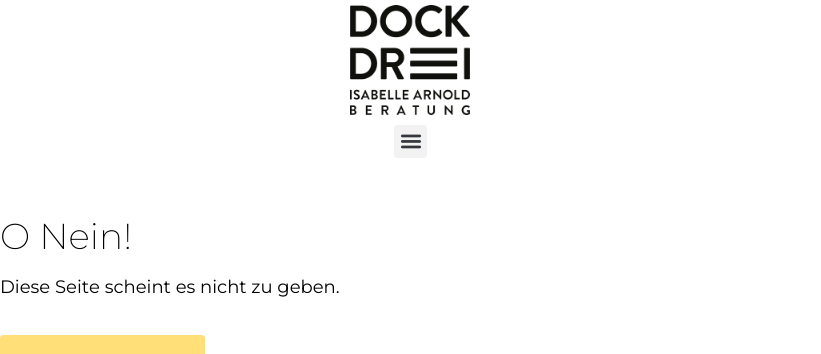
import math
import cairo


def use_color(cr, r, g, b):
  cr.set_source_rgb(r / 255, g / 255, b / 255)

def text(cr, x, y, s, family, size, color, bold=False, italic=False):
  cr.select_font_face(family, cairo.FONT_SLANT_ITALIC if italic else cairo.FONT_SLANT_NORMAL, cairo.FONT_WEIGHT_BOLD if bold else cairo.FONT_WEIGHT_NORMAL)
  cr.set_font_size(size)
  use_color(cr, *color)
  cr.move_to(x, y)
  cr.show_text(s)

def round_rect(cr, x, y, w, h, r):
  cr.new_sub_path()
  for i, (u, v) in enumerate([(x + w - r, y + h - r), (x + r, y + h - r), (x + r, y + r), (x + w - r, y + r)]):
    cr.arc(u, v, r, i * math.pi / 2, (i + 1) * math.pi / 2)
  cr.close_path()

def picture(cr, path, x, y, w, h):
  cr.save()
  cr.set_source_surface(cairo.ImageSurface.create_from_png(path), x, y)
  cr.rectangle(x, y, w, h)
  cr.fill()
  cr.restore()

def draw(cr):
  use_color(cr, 255, 255, 255)
  cr.paint()
  picture(cr, "img_01.png", 350, 5, 120, 110)
  use_color(cr, 242, 242, 242)
  round_rect(cr, 394, 125, 33, 33, 3)
  cr.fill()
  picture(cr, "img_02.png", 400, 134, 22, 15)
  use_color(cr, 254, 223, 120)
  round_rect(cr, 0, 335, 205, 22, 3)
  cr.fill()
  text(cr, 0, 249, "O Nein!", "Montserrat Thin", 36, (0, 0, 0))
  text(cr, 0, 293, "Diese Seite scheint es nicht zu geben.", "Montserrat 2 Thin", 18, (0, 0, 0))


surface = cairo.ImageSurface(cairo.FORMAT_RGB24, 821, 354)
cr = cairo.Context(surface)
options = cairo.FontOptions()
options.set_hint_metrics(cairo.HINT_METRICS_OFF)
options.set_hint_style(cairo.HINT_STYLE_NONE)
cr.set_font_options(options)
cr.set_miter_limit(4)
draw(cr)
surface.write_to_png("out.png")
